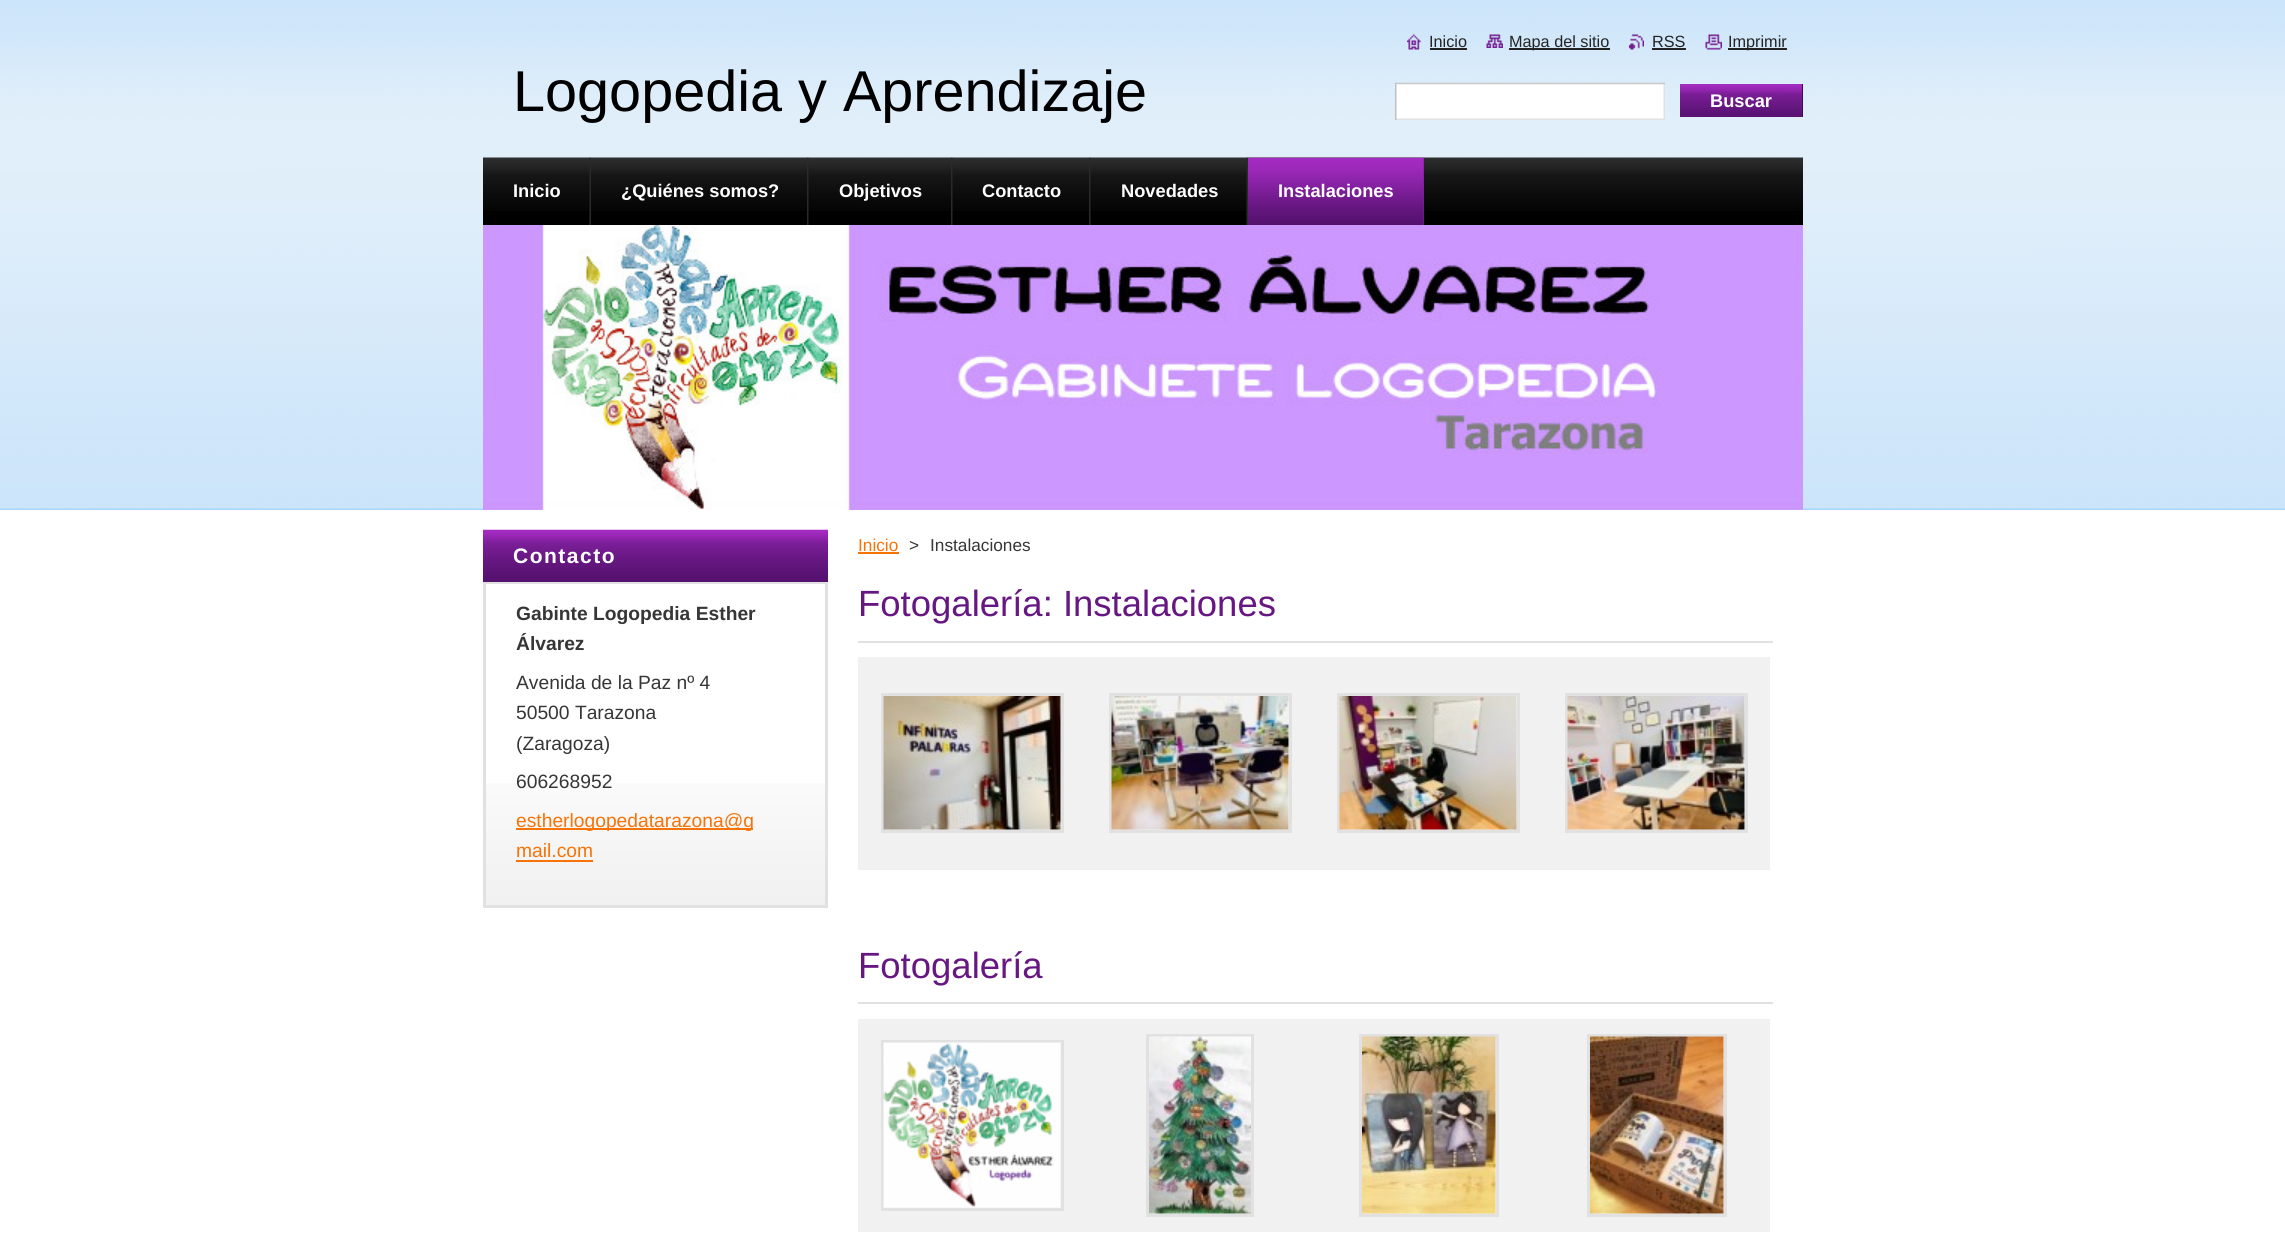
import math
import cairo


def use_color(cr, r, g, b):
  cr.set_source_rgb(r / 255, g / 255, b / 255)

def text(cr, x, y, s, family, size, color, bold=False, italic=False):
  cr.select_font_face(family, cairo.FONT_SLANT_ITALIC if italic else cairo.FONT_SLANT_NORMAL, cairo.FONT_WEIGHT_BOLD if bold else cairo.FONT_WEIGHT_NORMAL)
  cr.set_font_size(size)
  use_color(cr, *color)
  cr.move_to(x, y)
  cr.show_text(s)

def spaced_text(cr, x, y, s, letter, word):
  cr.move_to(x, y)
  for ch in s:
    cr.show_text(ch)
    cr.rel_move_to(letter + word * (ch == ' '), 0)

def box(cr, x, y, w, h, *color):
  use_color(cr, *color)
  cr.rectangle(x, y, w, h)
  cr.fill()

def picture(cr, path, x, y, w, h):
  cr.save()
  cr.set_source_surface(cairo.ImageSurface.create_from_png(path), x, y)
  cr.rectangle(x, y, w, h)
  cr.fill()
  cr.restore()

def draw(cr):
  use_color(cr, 255, 255, 255)
  cr.paint()
  picture(cr, "img_01.png", 0, 0, 2285, 510)
  picture(cr, "img_02.png", 1407, 34, 14, 16)
  box(cr, 1430, 48, 37, 2, 36, 36, 36)
  picture(cr, "img_03.png", 1486, 34, 17, 14)
  box(cr, 1509, 48, 101, 2, 36, 36, 36)
  picture(cr, "img_04.png", 1629, 34, 15, 16)
  box(cr, 1652, 48, 34, 2, 36, 36, 36)
  picture(cr, "img_05.png", 1705, 34, 17, 16)
  box(cr, 1728, 48, 59, 2, 36, 36, 36)
  picture(cr, "img_06.png", 1395, 82, 270, 38)
  picture(cr, "img_07.png", 1680, 84, 122, 33)
  box(cr, 1802, 84, 1, 33, 64, 9, 86)
  box(cr, 483, 211, 1320, 14, 0, 0, 0)
  picture(cr, "img_08.png", 483, 157, 1320, 54)
  picture(cr, "img_09.png", 589, 157, 2, 68)
  picture(cr, "img_10.png", 807, 157, 2, 68)
  picture(cr, "img_10.png", 951, 157, 2, 68)
  picture(cr, "img_10.png", 1089, 157, 2, 68)
  picture(cr, "img_09.png", 1246, 157, 2, 68)
  box(cr, 1423, 158, 1, 67, 125, 30, 153)
  picture(cr, "img_11.png", 1248, 157, 176, 68)
  picture(cr, "img_12.png", 483, 225, 1320, 285)
  picture(cr, "img_13.png", 486, 783, 339, 122)
  picture(cr, "img_14.png", 483, 529, 345, 53)
  box(cr, 483, 582, 345, 2, 225, 225, 225)
  box(cr, 825, 584, 3, 324, 225, 225, 225)
  box(cr, 483, 905, 345, 3, 225, 225, 225)
  box(cr, 483, 584, 3, 324, 225, 225, 225)
  box(cr, 516, 828, 237, 2, 248, 115, 7)
  box(cr, 516, 860, 77, 2, 248, 115, 7)
  box(cr, 858, 552, 41, 2, 248, 115, 7)
  box(cr, 858, 641, 915, 2, 225, 225, 225)
  box(cr, 858, 657, 912, 213, 241, 241, 241)
  cr.rectangle(882.5, 694.5, 180, 137)
  use_color(cr, 225, 225, 225)
  cr.set_line_width(3)
  cr.stroke()
  picture(cr, "img_15.png", 883, 696, 178, 134)
  cr.rectangle(1110.5, 694.5, 180, 137)
  cr.stroke()
  picture(cr, "img_16.png", 1111, 696, 178, 134)
  cr.rectangle(1338.5, 694.5, 180, 137)
  cr.stroke()
  picture(cr, "img_17.png", 1339, 696, 178, 134)
  cr.rectangle(1566.5, 694.5, 180, 137)
  cr.stroke()
  picture(cr, "img_18.png", 1567, 696, 178, 134)
  box(cr, 858, 1002, 915, 2, 225, 225, 225)
  box(cr, 858, 1019, 912, 213, 241, 241, 241)
  cr.rectangle(882.5, 1041.5, 180, 168)
  use_color(cr, 225, 225, 225)
  cr.stroke()
  picture(cr, "img_19.png", 883, 1042, 178, 166)
  cr.rectangle(1147.5, 1035.5, 105, 180)
  cr.stroke()
  picture(cr, "img_20.png", 1149, 1036, 102, 178)
  cr.rectangle(1360.5, 1035.5, 137, 180)
  cr.stroke()
  picture(cr, "img_21.png", 1362, 1036, 134, 178)
  cr.rectangle(1588.5, 1035.5, 137, 180)
  cr.stroke()
  picture(cr, "img_22.png", 1590, 1036, 134, 178)
  text(cr, 1429, 47, "Inicio", "Liberation Sans", 16.25, (36, 36, 36))
  text(cr, 1509, 47, "Mapa del sitio", "Liberation Sans", 16.25, (36, 36, 36))
  text(cr, 1652, 47, "RSS", "Liberation Sans", 16.25, (36, 36, 36))
  text(cr, 1728, 47, "Imprimir", "Liberation Sans", 16.25, (36, 36, 36))
  text(cr, 513, 111, "Logopedia y Aprendizaje", "Liberation Sans", 57.6, (0, 0, 0))
  text(cr, 1710, 107, "Buscar", "Liberation Sans", 18.25, (255, 255, 255), bold=True)
  text(cr, 513, 197, "Inicio", "Liberation Sans", 18.25, (255, 255, 255), bold=True)
  text(cr, 621, 197, "¿Quiénes somos?", "Liberation Sans", 18.25, (255, 255, 255), bold=True)
  text(cr, 839, 197, "Objetivos", "Liberation Sans", 18.25, (255, 255, 255), bold=True)
  text(cr, 982, 197, "Contacto", "Liberation Sans", 18.25, (255, 255, 255), bold=True)
  text(cr, 1121, 197, "Novedades", "Liberation Sans", 18.25, (255, 255, 255), bold=True)
  text(cr, 1278, 197, "Instalaciones", "Liberation Sans", 18.25, (255, 255, 255), bold=True)
  cr.set_font_size(21)
  spaced_text(cr, 513, 563, "Contacto", 1.5, 0)
  text(cr, 516, 620, "Gabinte Logopedia Esther", "Liberation Sans", 19.25, (54, 54, 54), bold=True)
  text(cr, 516, 650, "Álvarez", "Liberation Sans", 19.25, (54, 54, 54), bold=True)
  text(cr, 516, 689, "Avenida de la Paz nº 4", "Liberation Sans", 19.25, (54, 54, 54))
  text(cr, 516, 719, "50500 Tarazona", "Liberation Sans", 19.25, (54, 54, 54))
  text(cr, 516, 750, "(Zaragoza)", "Liberation Sans", 19.25, (54, 54, 54))
  text(cr, 516, 788, "606268952", "Liberation Sans", 19.25, (54, 54, 54))
  text(cr, 516, 827, "estherlogopedatarazona@g", "Liberation Sans", 19.25, (248, 115, 7))
  text(cr, 516, 857, "mail.com", "Liberation Sans", 19.25, (248, 115, 7))
  text(cr, 858, 551, "Inicio", "Liberation Sans", 17.25, (248, 115, 7))
  text(cr, 909, 551, ">", "Liberation Sans", 17.25, (54, 54, 54))
  text(cr, 930, 551, "Instalaciones", "Liberation Sans", 17.25, (54, 54, 54))
  text(cr, 858, 616, "Fotogalería: Instalaciones", "Liberation Sans", 36.5, (103, 23, 130))
  text(cr, 858, 978, "Fotogalería", "Liberation Sans", 36.5, (103, 23, 130))


surface = cairo.ImageSurface(cairo.FORMAT_RGB24, 2285, 1236)
cr = cairo.Context(surface)
options = cairo.FontOptions()
options.set_hint_metrics(cairo.HINT_METRICS_OFF)
options.set_hint_style(cairo.HINT_STYLE_NONE)
cr.set_font_options(options)
cr.set_miter_limit(4)
draw(cr)
surface.write_to_png("out.png")
